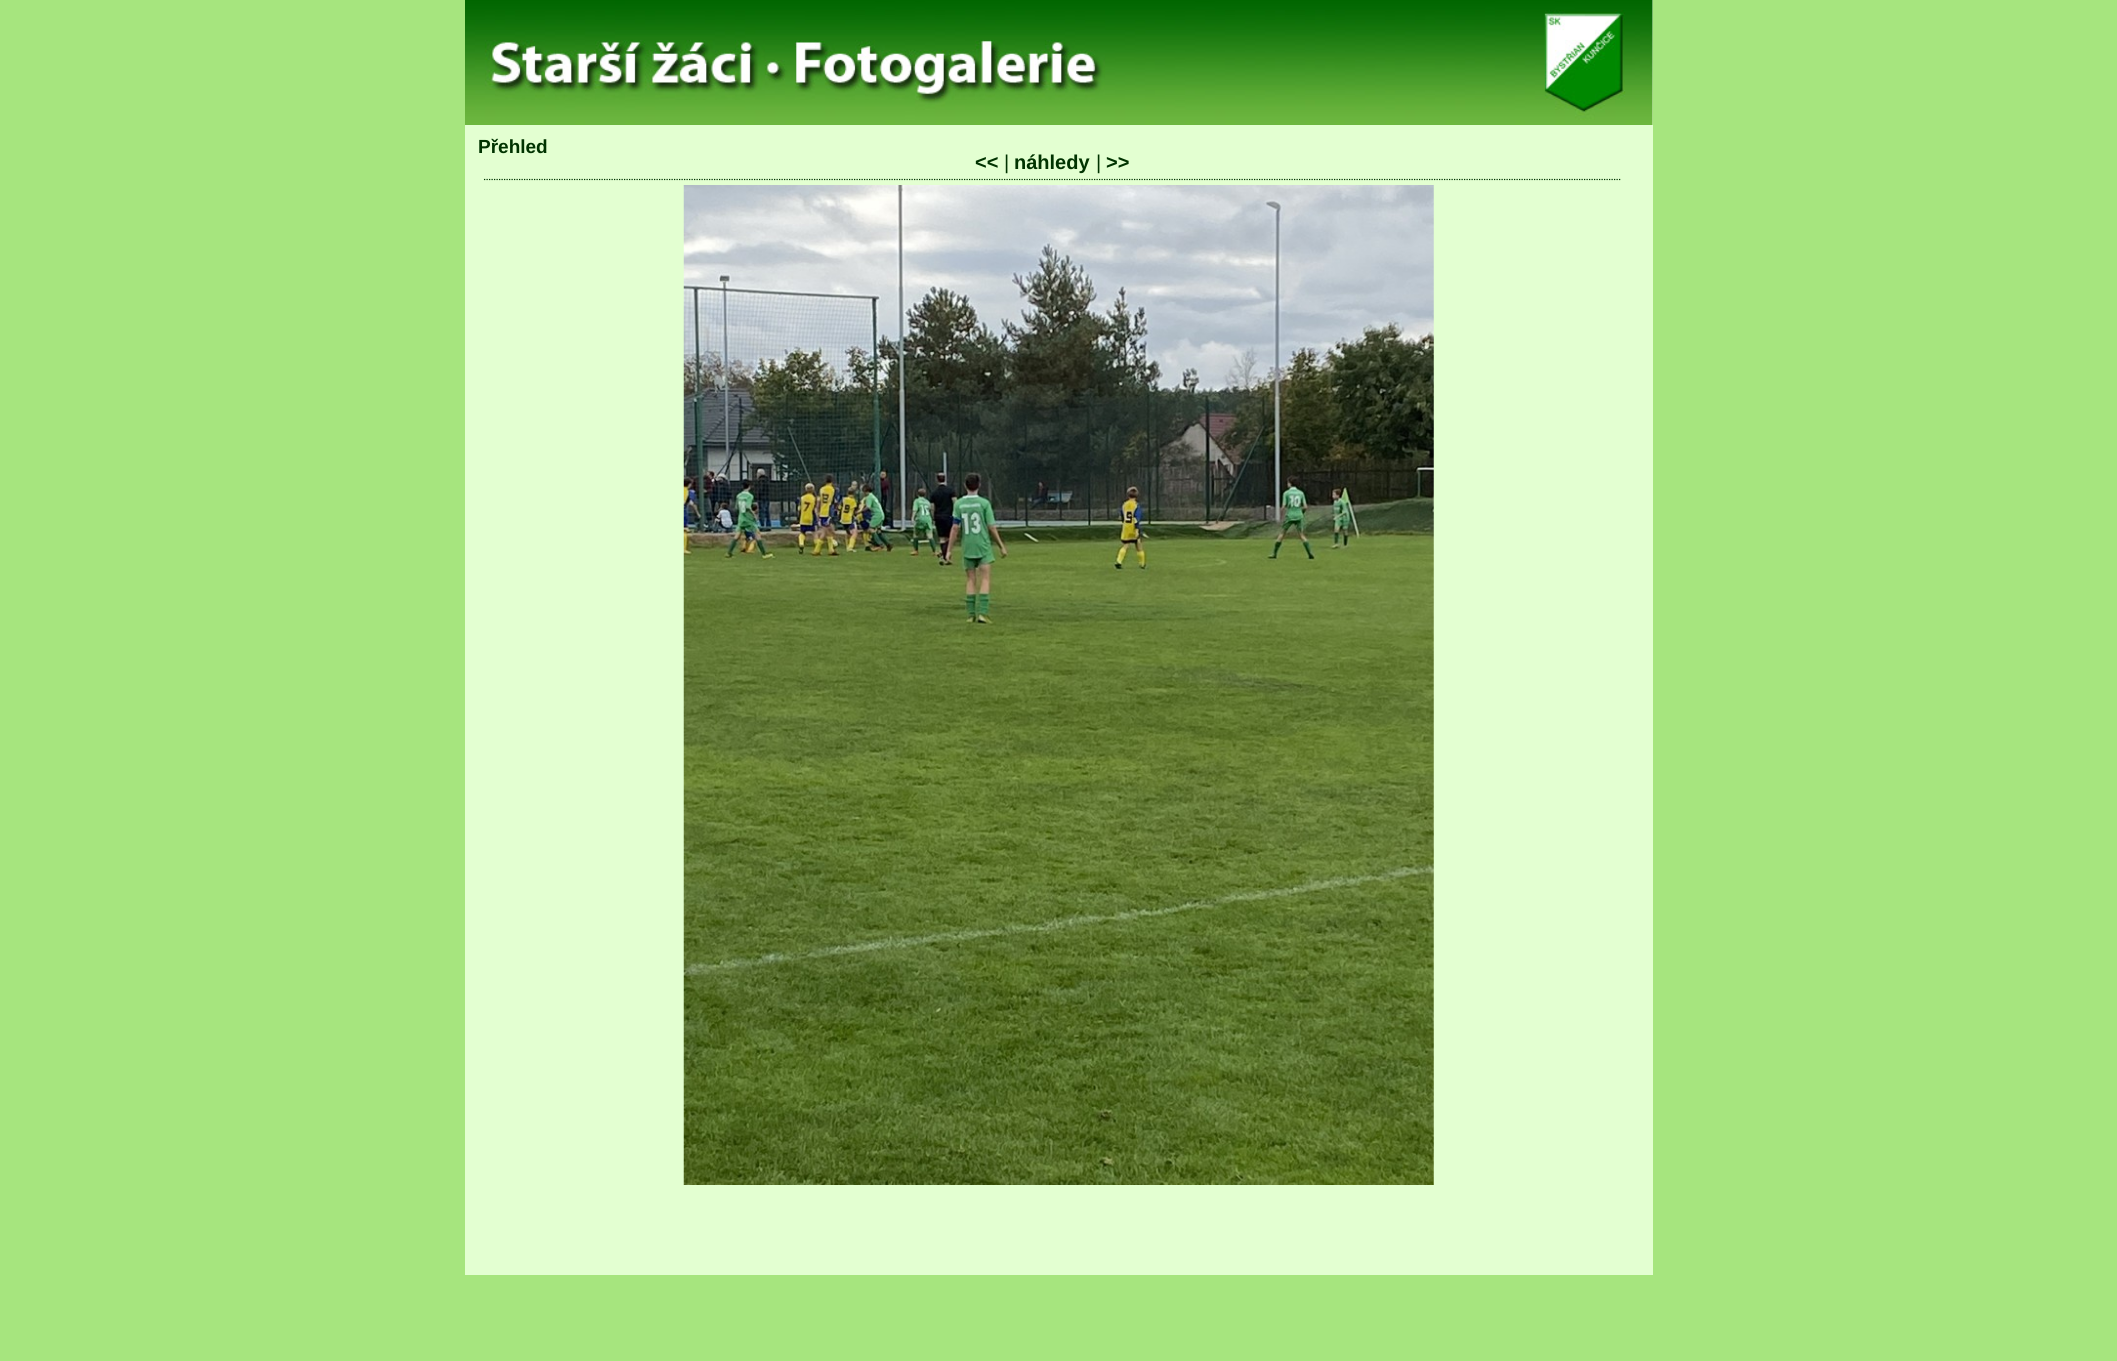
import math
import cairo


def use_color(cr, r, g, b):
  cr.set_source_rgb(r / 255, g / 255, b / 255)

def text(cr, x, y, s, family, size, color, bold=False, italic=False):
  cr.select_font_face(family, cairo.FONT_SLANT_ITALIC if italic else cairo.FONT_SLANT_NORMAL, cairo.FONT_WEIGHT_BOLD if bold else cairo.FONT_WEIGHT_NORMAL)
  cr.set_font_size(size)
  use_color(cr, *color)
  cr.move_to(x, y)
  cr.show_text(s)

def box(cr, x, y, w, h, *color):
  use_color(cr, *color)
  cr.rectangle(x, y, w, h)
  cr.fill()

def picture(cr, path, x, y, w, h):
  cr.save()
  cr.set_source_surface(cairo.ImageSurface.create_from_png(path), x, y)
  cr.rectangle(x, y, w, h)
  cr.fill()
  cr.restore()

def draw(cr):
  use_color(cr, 166, 229, 126)
  cr.paint()
  box(cr, 465, 0, 1188, 1275, 227, 255, 209)
  picture(cr, "img_01.png", 465, 0, 1188, 125)
  cr.new_path()
  cr.move_to(484, 179.5)
  cr.line_to(1621, 179.5)
  use_color(cr, 0, 51, 0)
  cr.set_line_width(1.2)
  cr.set_dash([1.25, 1.25])
  cr.stroke()
  picture(cr, "img_02.png", 683, 185, 751, 1000)
  text(cr, 478, 153, "Přehled", "Liberation Sans", 19, (0, 51, 0), bold=True)
  text(cr, 975, 169, "<<", "Liberation Sans", 20, (0, 51, 0), bold=True)
  text(cr, 1004, 169, "|", "Liberation Sans", 20, (0, 51, 0))
  text(cr, 1014, 169, "náhledy", "Liberation Sans", 20, (0, 51, 0), bold=True)
  text(cr, 1096, 169, "|", "Liberation Sans", 20, (0, 51, 0))
  text(cr, 1106, 169, ">>", "Liberation Sans", 20, (0, 51, 0), bold=True)


surface = cairo.ImageSurface(cairo.FORMAT_RGB24, 2117, 1361)
cr = cairo.Context(surface)
options = cairo.FontOptions()
options.set_hint_metrics(cairo.HINT_METRICS_OFF)
options.set_hint_style(cairo.HINT_STYLE_NONE)
cr.set_font_options(options)
cr.set_miter_limit(4)
draw(cr)
surface.write_to_png("out.png")
